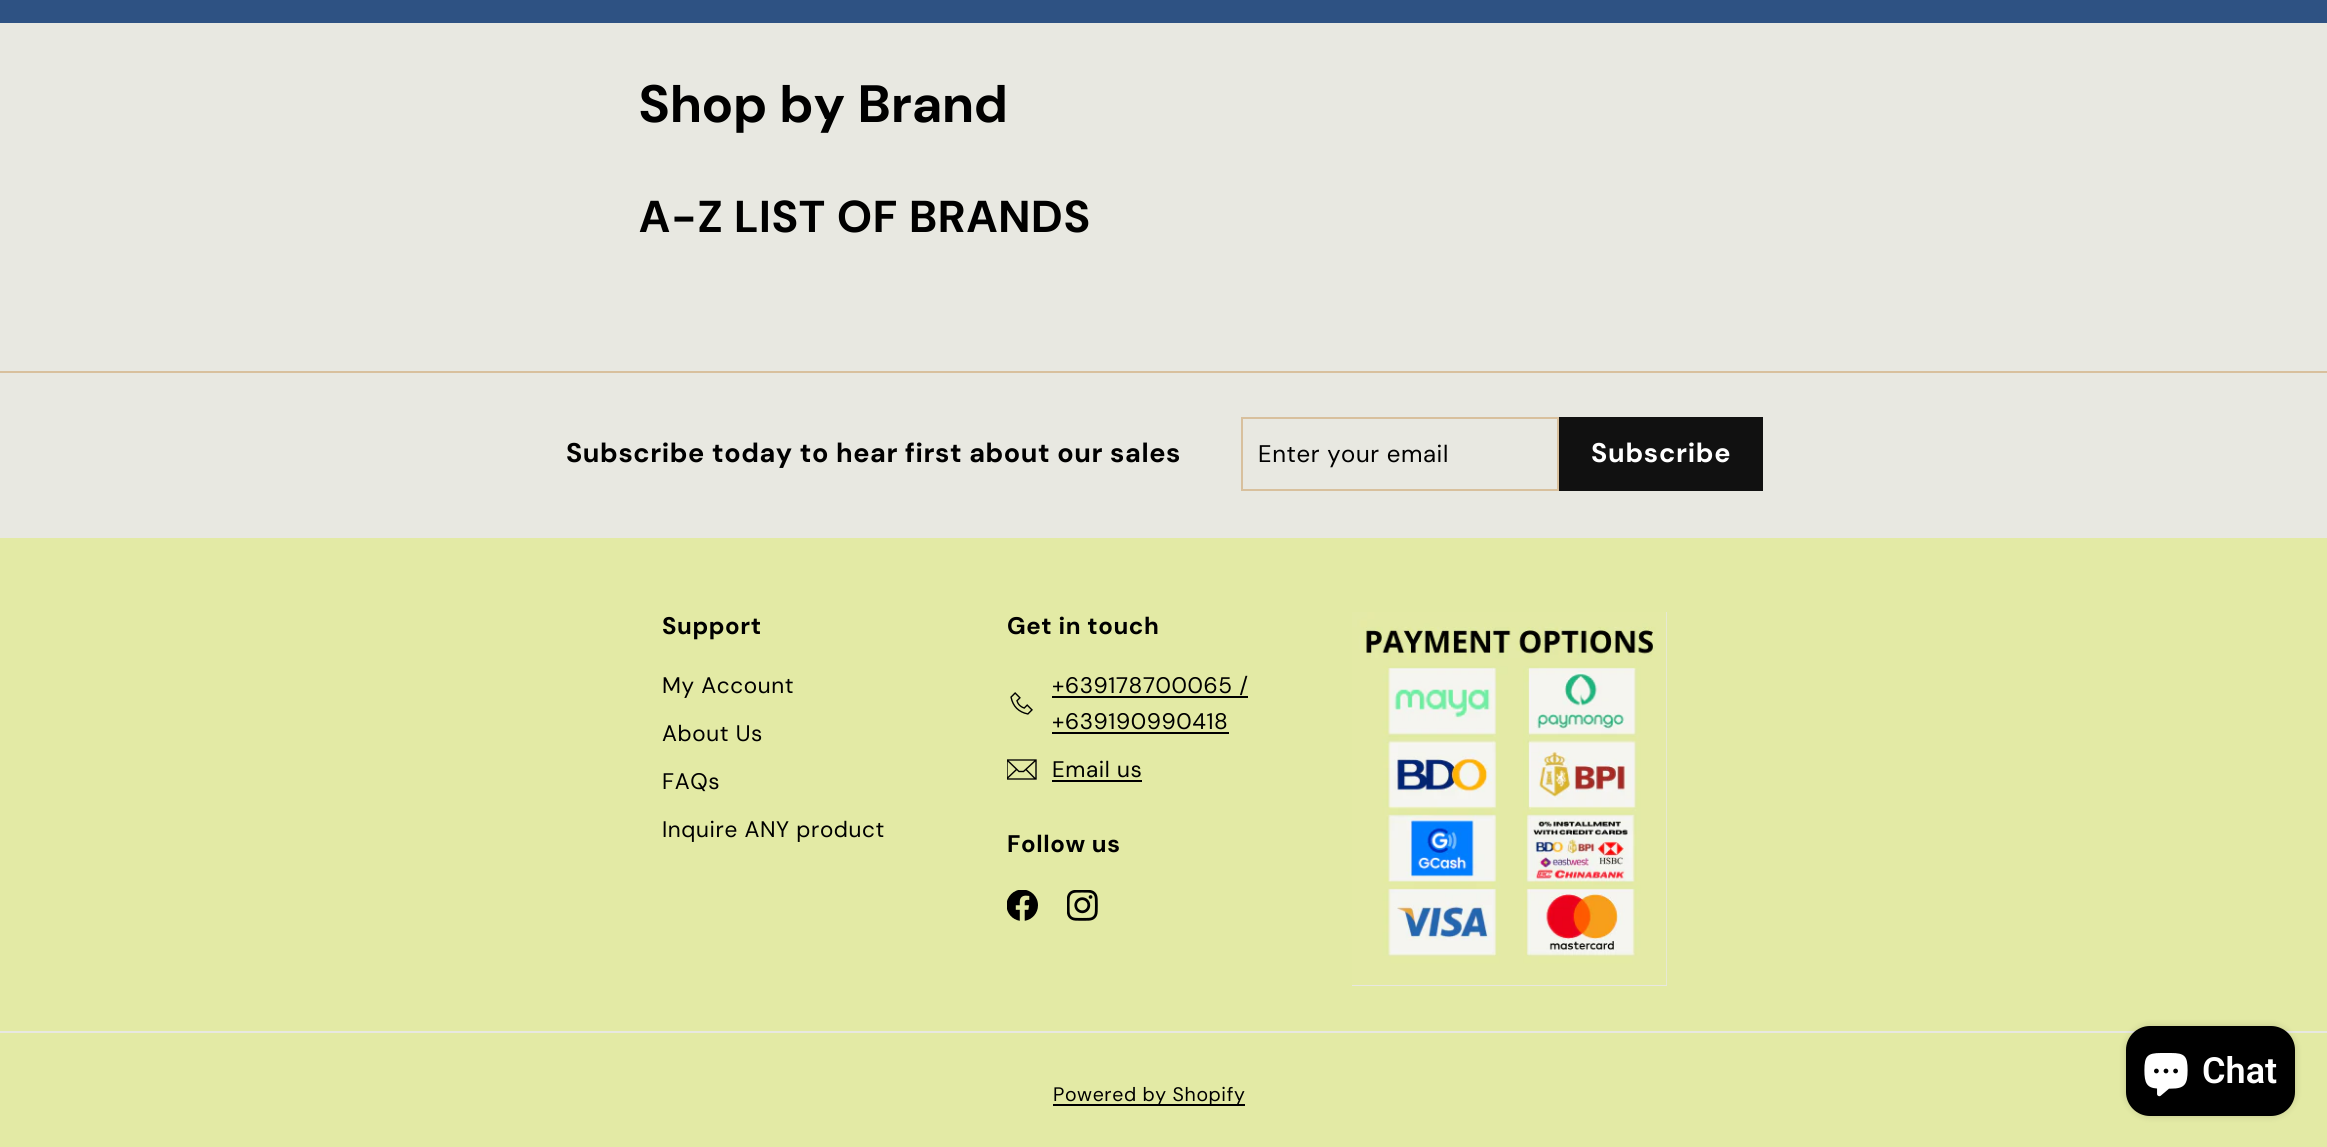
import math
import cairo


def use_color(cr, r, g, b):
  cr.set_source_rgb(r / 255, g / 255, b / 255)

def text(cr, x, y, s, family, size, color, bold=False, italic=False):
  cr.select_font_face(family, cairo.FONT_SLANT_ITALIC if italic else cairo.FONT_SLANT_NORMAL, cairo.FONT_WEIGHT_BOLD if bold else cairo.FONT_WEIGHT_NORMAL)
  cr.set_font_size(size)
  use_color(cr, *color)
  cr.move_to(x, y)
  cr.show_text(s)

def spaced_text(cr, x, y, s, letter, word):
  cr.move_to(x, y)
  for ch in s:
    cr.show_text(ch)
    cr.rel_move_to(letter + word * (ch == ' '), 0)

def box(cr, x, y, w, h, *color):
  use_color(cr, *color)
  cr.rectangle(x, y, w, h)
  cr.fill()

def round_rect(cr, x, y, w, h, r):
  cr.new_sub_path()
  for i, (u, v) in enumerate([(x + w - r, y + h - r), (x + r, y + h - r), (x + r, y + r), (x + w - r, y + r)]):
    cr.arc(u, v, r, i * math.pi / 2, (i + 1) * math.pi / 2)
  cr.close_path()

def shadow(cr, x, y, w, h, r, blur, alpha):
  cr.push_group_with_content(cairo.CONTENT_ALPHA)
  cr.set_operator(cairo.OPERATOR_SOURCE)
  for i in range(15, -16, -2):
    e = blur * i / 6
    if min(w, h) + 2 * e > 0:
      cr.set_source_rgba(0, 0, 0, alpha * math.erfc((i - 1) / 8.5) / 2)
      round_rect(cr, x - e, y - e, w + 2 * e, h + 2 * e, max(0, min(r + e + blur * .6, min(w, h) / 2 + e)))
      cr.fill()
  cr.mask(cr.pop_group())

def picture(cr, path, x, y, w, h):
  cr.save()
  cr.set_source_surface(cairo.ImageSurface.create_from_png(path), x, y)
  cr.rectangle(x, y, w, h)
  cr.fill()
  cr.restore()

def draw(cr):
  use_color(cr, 232, 232, 225)
  cr.paint()
  box(cr, 0, 0, 2327, 23, 46, 82, 131)
  box(cr, 0, 371, 2327, 2, 216, 192, 157)
  cr.rectangle(1242, 418, 316, 72)
  cr.stroke()
  box(cr, 1559, 417, 204, 74, 17, 17, 17)
  box(cr, 0, 538, 2327, 609, 227, 234, 165)
  picture(cr, "img_01.png", 1010, 692, 23, 23)
  box(cr, 1052, 696, 196, 2, 0, 0, 0)
  box(cr, 1052, 732, 177, 2, 0, 0, 0)
  cr.save()
  cr.rectangle(1007, 755, 30, 30)
  cr.clip()
  cr.new_path()
  cr.move_to(1036, 779)
  cr.line_to(1007, 779)
  cr.line_to(1007, 760)
  cr.line_to(1036, 760)
  cr.close_path()
  cr.move_to(1007, 760)
  cr.line_to(1019, 771.5)
  cr.line_to(1023.5, 771.5)
  cr.line_to(1036, 760)
  cr.move_to(1016.5, 769.5)
  cr.line_to(1007, 778.5)
  cr.move_to(1035.5, 779)
  cr.line_to(1026, 769.5)
  cr.set_line_width(1.4)
  cr.stroke()
  cr.restore()
  box(cr, 1052, 780, 90, 2, 0, 0, 0)
  picture(cr, "img_02.png", 1007, 890, 31, 31)
  picture(cr, "img_03.png", 1067, 890, 31, 31)
  box(cr, 1352, 612, 315, 374, 232, 232, 225)
  picture(cr, "img_04.png", 1352, 612, 315, 373)
  box(cr, 0, 1031, 2327, 2, 232, 232, 225)
  box(cr, 1053, 1104, 192, 2, 0, 0, 0)
  use_color(cr, 0, 0, 0)
  shadow(cr, 2126, 1026, 169, 90, 24, 4, 0.15)
  use_color(cr, 0, 0, 0)
  round_rect(cr, 2126, 1026, 169, 90, 24)
  cr.fill()
  picture(cr, "img_05.png", 2144, 1053, 44, 44)
  cr.select_font_face("DM Sans", cairo.FONT_SLANT_NORMAL, cairo.FONT_WEIGHT_BOLD)
  cr.set_font_size(52.5)
  spaced_text(cr, 639, 122, "Shop by Brand", 1.25, 0)
  cr.select_font_face("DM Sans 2", cairo.FONT_SLANT_NORMAL, cairo.FONT_WEIGHT_BOLD)
  cr.set_font_size(44.6)
  spaced_text(cr, 639, 232, "A-Z LIST OF BRANDS", 1.1, 0)
  cr.select_font_face("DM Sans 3", cairo.FONT_SLANT_NORMAL, cairo.FONT_WEIGHT_BOLD)
  cr.set_font_size(27)
  spaced_text(cr, 566, 462, "Subscribe today to hear first about our sales", 0.6, 0)
  cr.select_font_face("DM Sans")
  cr.set_font_size(24)
  spaced_text(cr, 1258, 462, "Enter your email", 0.6, 0)
  cr.select_font_face("DM Sans 3", cairo.FONT_SLANT_NORMAL, cairo.FONT_WEIGHT_BOLD)
  cr.set_font_size(27)
  use_color(cr, 255, 255, 255)
  spaced_text(cr, 1591, 462, "Subscribe", 0.75, 0)
  cr.select_font_face("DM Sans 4", cairo.FONT_SLANT_NORMAL, cairo.FONT_WEIGHT_BOLD)
  cr.set_font_size(24)
  use_color(cr, 0, 0, 0)
  spaced_text(cr, 662, 634, "Support", 0.6, 0)
  cr.select_font_face("DM Sans 2")
  cr.set_font_size(22.5)
  spaced_text(cr, 662, 693, "My Account", 0.6, 0)
  spaced_text(cr, 662, 741, "About Us", 0.6, 0)
  spaced_text(cr, 662, 789, "FAQs", 0.6, 0)
  spaced_text(cr, 662, 837, "Inquire ANY product", 0.6, 0)
  cr.select_font_face("DM Sans 4", cairo.FONT_SLANT_NORMAL, cairo.FONT_WEIGHT_BOLD)
  cr.set_font_size(24)
  spaced_text(cr, 1007, 634, "Get in touch", 0.6, 0)
  cr.select_font_face("DM Sans 2")
  cr.set_font_size(22.5)
  spaced_text(cr, 1052, 693, "+639178700065 /", 0.6, 0)
  spaced_text(cr, 1052, 729, "+639190990418", 0.6, 0)
  spaced_text(cr, 1052, 777, "Email us", 0.6, 0)
  cr.select_font_face("DM Sans 4", cairo.FONT_SLANT_NORMAL, cairo.FONT_WEIGHT_BOLD)
  cr.set_font_size(24)
  spaced_text(cr, 1007, 852, "Follow us", 0.6, 0)
  cr.select_font_face("DM Sans 3")
  cr.set_font_size(19.5)
  spaced_text(cr, 1053, 1101, "Powered by Shopify", 0.6, 0)
  text(cr, 2202, 1083, "Chat", "Roboto SemiBold", 36, (255, 255, 255))


surface = cairo.ImageSurface(cairo.FORMAT_RGB24, 2327, 1147)
cr = cairo.Context(surface)
options = cairo.FontOptions()
options.set_hint_metrics(cairo.HINT_METRICS_OFF)
options.set_hint_style(cairo.HINT_STYLE_NONE)
cr.set_font_options(options)
cr.set_miter_limit(4)
draw(cr)
surface.write_to_png("out.png")
